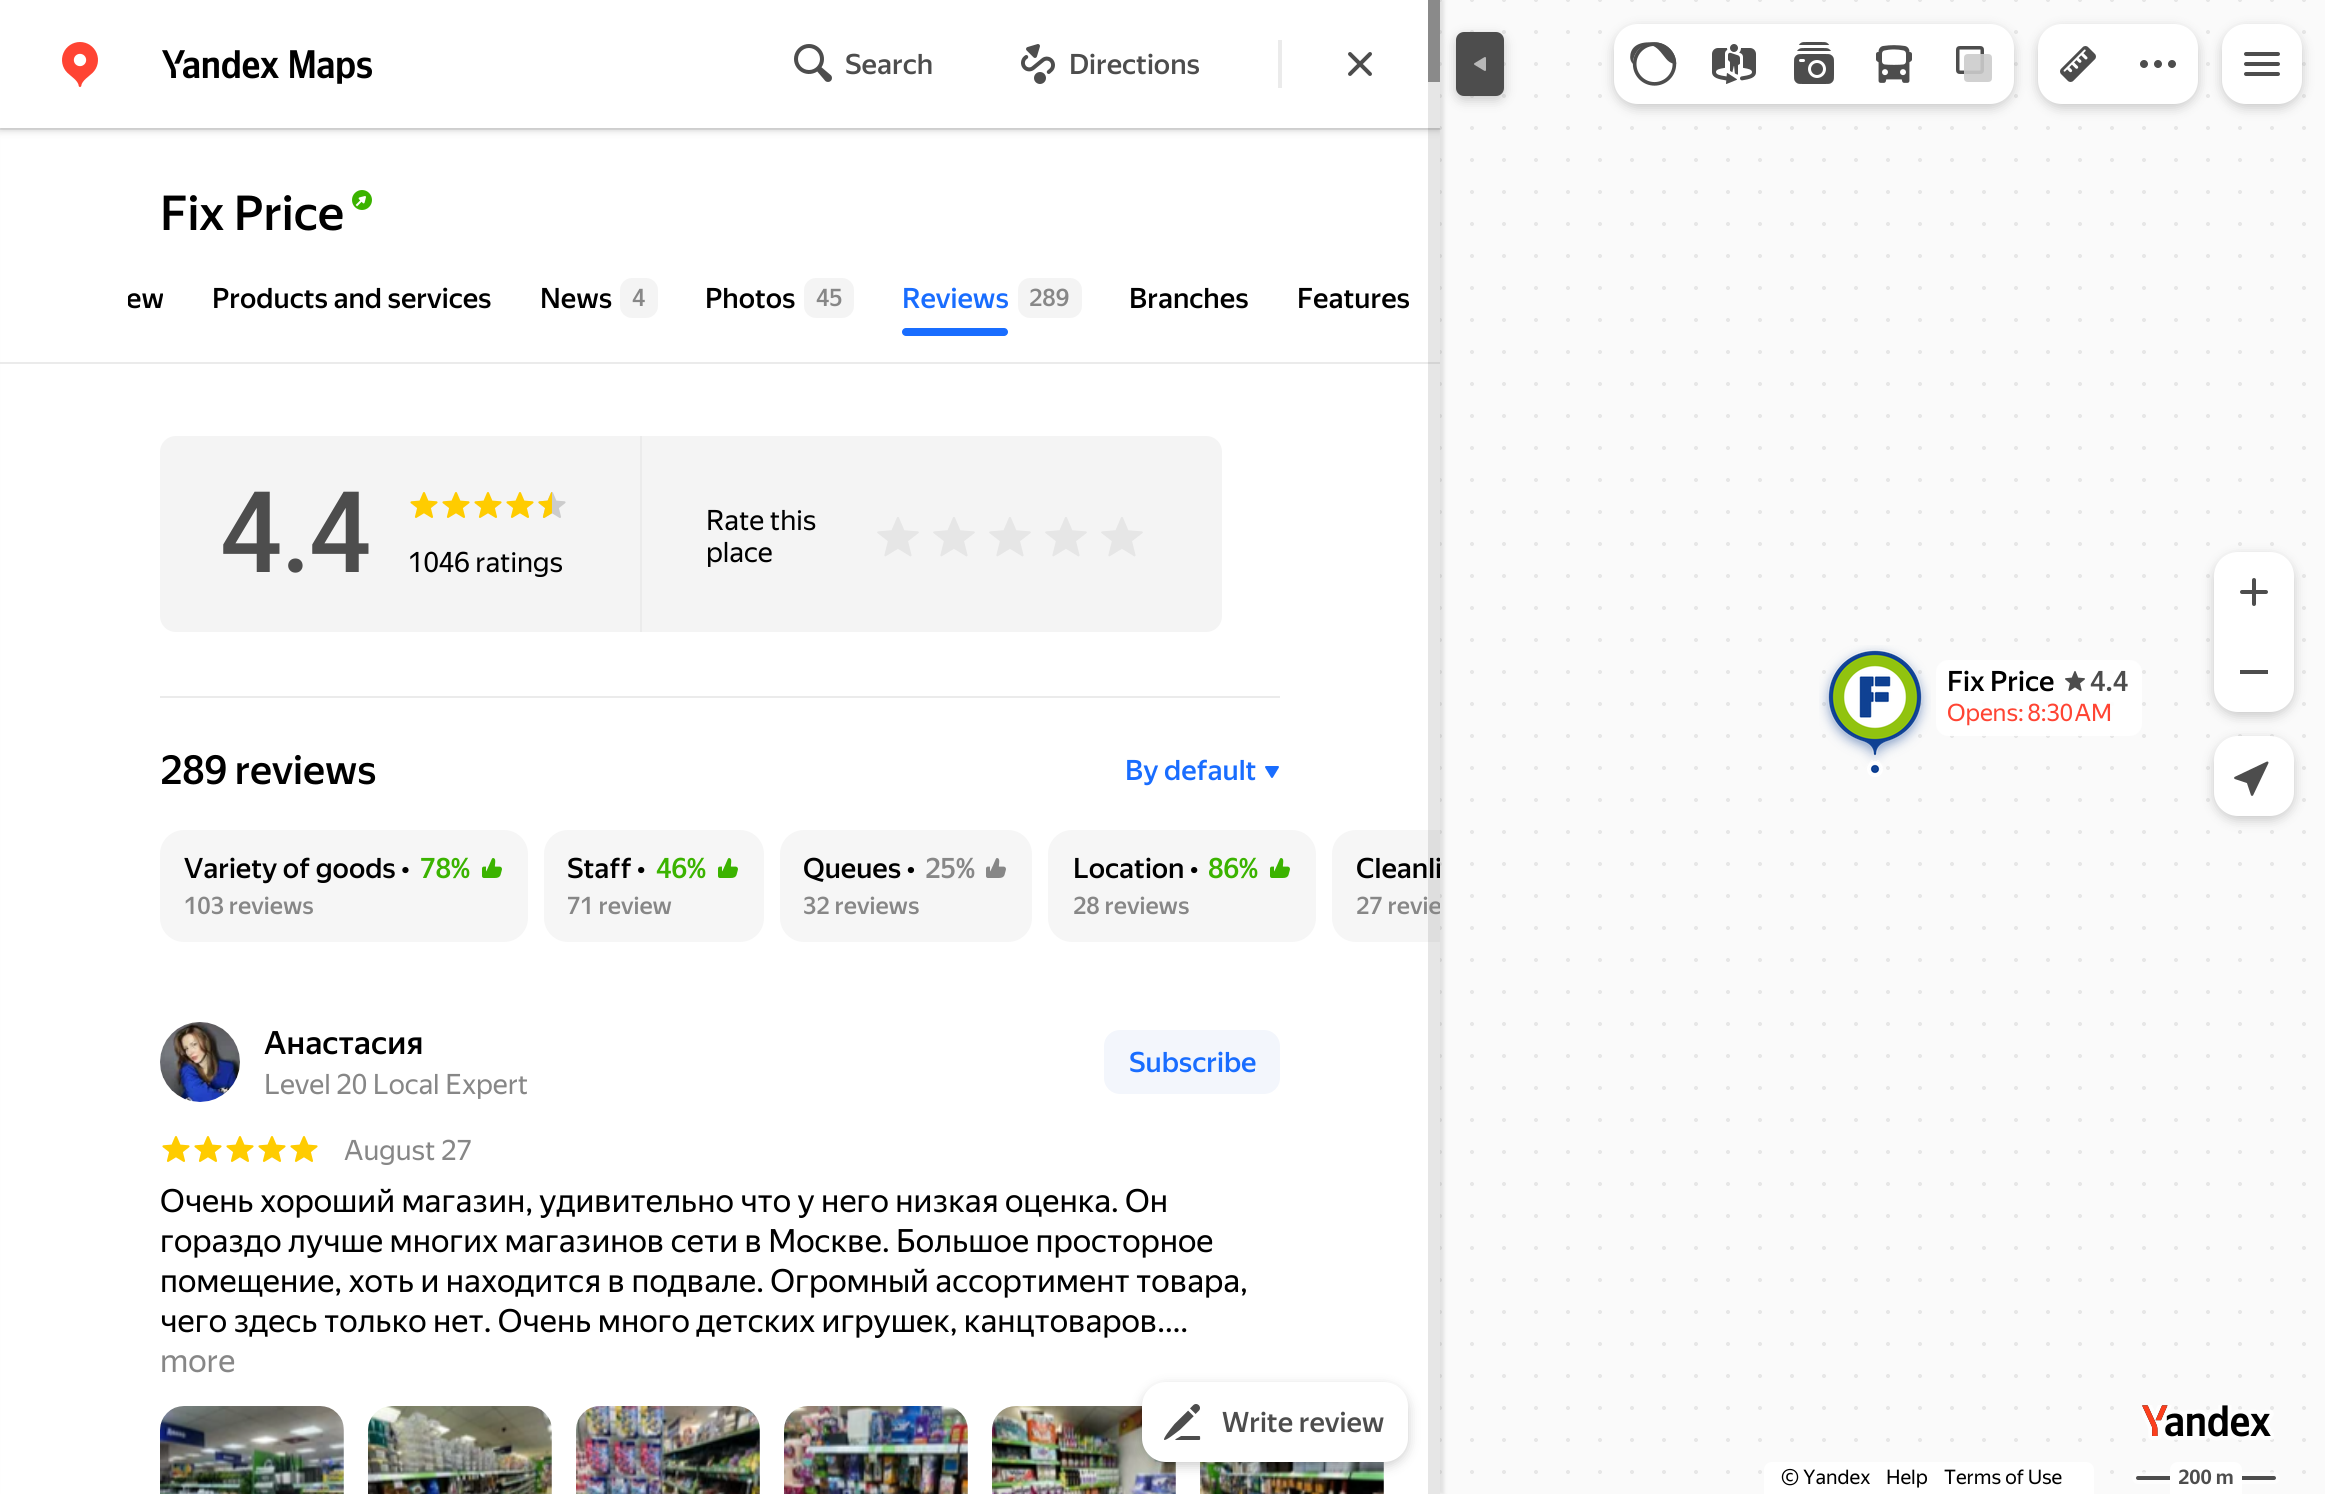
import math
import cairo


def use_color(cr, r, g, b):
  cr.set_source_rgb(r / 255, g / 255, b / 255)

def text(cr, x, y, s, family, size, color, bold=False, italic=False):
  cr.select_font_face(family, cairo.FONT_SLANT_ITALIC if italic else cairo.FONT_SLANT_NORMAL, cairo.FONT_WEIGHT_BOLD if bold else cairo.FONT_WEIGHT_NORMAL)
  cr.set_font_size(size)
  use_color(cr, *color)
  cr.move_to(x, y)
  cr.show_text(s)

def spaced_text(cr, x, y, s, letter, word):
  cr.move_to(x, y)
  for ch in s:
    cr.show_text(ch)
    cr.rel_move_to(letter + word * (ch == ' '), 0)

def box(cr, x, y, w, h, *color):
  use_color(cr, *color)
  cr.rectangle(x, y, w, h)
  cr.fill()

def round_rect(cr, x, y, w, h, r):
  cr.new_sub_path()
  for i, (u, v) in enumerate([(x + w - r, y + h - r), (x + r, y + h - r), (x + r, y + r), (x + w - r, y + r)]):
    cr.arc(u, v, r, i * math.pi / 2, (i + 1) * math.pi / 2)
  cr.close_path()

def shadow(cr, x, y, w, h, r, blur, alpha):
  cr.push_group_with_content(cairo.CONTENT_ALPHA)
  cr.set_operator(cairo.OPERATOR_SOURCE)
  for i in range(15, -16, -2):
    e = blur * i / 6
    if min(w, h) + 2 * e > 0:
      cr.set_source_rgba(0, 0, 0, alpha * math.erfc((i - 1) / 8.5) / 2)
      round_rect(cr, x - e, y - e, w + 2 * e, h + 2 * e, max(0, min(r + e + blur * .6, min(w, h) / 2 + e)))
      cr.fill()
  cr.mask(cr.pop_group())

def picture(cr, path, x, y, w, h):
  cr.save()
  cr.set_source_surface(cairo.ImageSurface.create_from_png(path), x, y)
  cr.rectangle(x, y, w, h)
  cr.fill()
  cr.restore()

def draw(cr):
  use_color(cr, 255, 255, 255)
  cr.paint()
  picture(cr, "img_01.png", 1440, 0, 885, 1494)
  use_color(cr, 0, 0, 0)
  shadow(cr, 4, 0, 1440, 1494, 0, 2, 0.1)
  box(cr, 1, 130, 1439, 1364, 255, 255, 255)
  box(cr, 0, 128, 1440, 2, 235, 235, 235)
  cr.save()
  cr.rectangle(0, 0, 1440, 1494)
  cr.clip()
  use_color(cr, 0, 0, 0)
  shadow(cr, 0, 122, 1440, 8, 0, 4, 0.2)
  cr.restore()
  use_color(cr, 0, 0, 0)
  shadow(cr, 1456, 36, 48, 64, 8, 6, 0.2)
  box(cr, 0, 0, 1440, 128, 255, 255, 255)
  box(cr, 1428, 0, 12, 82, 138, 138, 138)
  box(cr, 0, 362, 1440, 2, 235, 235, 235)
  use_color(cr, 246, 246, 246)
  cr.new_path()
  cr.move_to(1356, 830)
  cr.line_to(1440, 830)
  cr.line_to(1440, 942)
  cr.line_to(1356, 942)
  cr.curve_to(1342.5, 942, 1332, 931.5, 1332, 918)
  cr.line_to(1332, 854)
  cr.curve_to(1332, 840.5, 1342.5, 830, 1356, 830)
  cr.close_path()
  cr.fill()
  cr.set_source_rgba(0, 0, 0, 0.1)
  cr.rectangle(1428, 82, 12, 1412)
  cr.fill()
  picture(cr, "img_02.png", 62, 42, 36, 45)
  picture(cr, "img_03.png", 162, 50, 210, 34)
  picture(cr, "img_04.png", 794, 44, 38, 38)
  picture(cr, "img_05.png", 1021, 44, 34, 40)
  box(cr, 1278, 40, 4, 48, 235, 235, 235)
  picture(cr, "img_06.png", 1348, 52, 24, 24)
  picture(cr, "img_07.png", 352, 190, 20, 20)
  use_color(cr, 244, 244, 244)
  round_rect(cr, 620, 278, 38, 40, 12)
  cr.fill()
  round_rect(cr, 804, 278, 50, 40, 12)
  cr.fill()
  round_rect(cr, 1018, 278, 64, 40, 12)
  cr.fill()
  use_color(cr, 25, 109, 255)
  round_rect(cr, 902, 328, 106, 8, 4)
  cr.fill()
  use_color(cr, 244, 244, 244)
  cr.new_path()
  cr.move_to(176, 436)
  cr.line_to(640, 436)
  cr.line_to(640, 632)
  cr.line_to(176, 632)
  cr.curve_to(167, 632, 160, 625, 160, 616)
  cr.line_to(160, 452)
  cr.curve_to(160, 443, 167, 436, 176, 436)
  cr.close_path()
  cr.fill()
  picture(cr, "img_08.png", 410, 492, 28, 26)
  picture(cr, "img_08.png", 442, 492, 28, 26)
  picture(cr, "img_08.png", 474, 492, 28, 26)
  picture(cr, "img_08.png", 506, 492, 28, 26)
  picture(cr, "img_09.png", 538, 492, 28, 26)
  cr.new_path()
  cr.move_to(640, 436)
  cr.line_to(1206, 436)
  cr.curve_to(1215, 436, 1222, 443, 1222, 452)
  cr.line_to(1222, 616)
  cr.curve_to(1222, 625, 1215, 632, 1206, 632)
  cr.line_to(640, 632)
  cr.close_path()
  cr.fill()
  box(cr, 640, 436, 2, 196, 235, 235, 235)
  picture(cr, "img_10.png", 877, 517, 42, 40)
  picture(cr, "img_10.png", 933, 517, 42, 40)
  picture(cr, "img_10.png", 989, 517, 42, 40)
  picture(cr, "img_10.png", 1045, 517, 42, 40)
  picture(cr, "img_10.png", 1101, 517, 42, 40)
  box(cr, 160, 696, 1120, 2, 235, 235, 235)
  picture(cr, "img_11.png", 1265, 766, 14, 12)
  use_color(cr, 246, 246, 246)
  round_rect(cr, 160, 830, 368, 112, 24)
  cr.fill()
  picture(cr, "img_12.png", 482, 858, 20, 20)
  round_rect(cr, 544, 830, 220, 112, 24)
  cr.fill()
  picture(cr, "img_12.png", 718, 858, 20, 20)
  round_rect(cr, 780, 830, 252, 112, 24)
  cr.fill()
  picture(cr, "img_13.png", 986, 858, 20, 20)
  round_rect(cr, 1048, 830, 268, 112, 24)
  cr.fill()
  picture(cr, "img_12.png", 1270, 858, 20, 20)
  picture(cr, "img_14.png", 160, 1022, 80, 80)
  use_color(cr, 243, 246, 252)
  round_rect(cr, 1104, 1030, 176, 64, 16)
  cr.fill()
  picture(cr, "img_15.png", 162, 1136, 28, 26)
  picture(cr, "img_15.png", 194, 1136, 28, 26)
  picture(cr, "img_15.png", 226, 1136, 28, 26)
  picture(cr, "img_15.png", 258, 1136, 28, 26)
  picture(cr, "img_15.png", 290, 1136, 28, 26)
  picture(cr, "img_16.png", 160, 1406, 184, 88)
  picture(cr, "img_17.png", 368, 1406, 184, 88)
  picture(cr, "img_18.png", 576, 1406, 184, 88)
  picture(cr, "img_19.png", 784, 1406, 184, 88)
  picture(cr, "img_20.png", 992, 1406, 184, 88)
  picture(cr, "img_21.png", 1200, 1462, 184, 32)
  use_color(cr, 0, 0, 0)
  shadow(cr, 1142, 1386, 266, 80, 24, 6, 0.2)
  use_color(cr, 255, 255, 255)
  round_rect(cr, 1142, 1382, 266, 80, 24)
  cr.fill()
  picture(cr, "img_22.png", 1164, 1404, 37, 36)
  use_color(cr, 77, 77, 77)
  round_rect(cr, 1456, 32, 48, 64, 8)
  cr.fill()
  picture(cr, "img_23.png", 1474, 57, 12, 14)
  use_color(cr, 0, 0, 0)
  shadow(cr, 1614, 28, 400, 80, 24, 6, 0.2)
  use_color(cr, 255, 255, 255)
  cr.new_path()
  cr.move_to(1638, 24)
  cr.line_to(1694, 24)
  cr.line_to(1694, 104)
  cr.line_to(1638, 104)
  cr.curve_to(1624.5, 104, 1614, 93.5, 1614, 80)
  cr.line_to(1614, 48)
  cr.curve_to(1614, 34.5, 1624.5, 24, 1638, 24)
  cr.close_path()
  cr.fill()
  picture(cr, "img_24.png", 1630, 42, 47, 44)
  box(cr, 1694, 24, 240, 80, 255, 255, 255)
  picture(cr, "img_25.png", 1712, 44, 44, 40)
  cr.new_path()
  cr.move_to(1934, 24)
  cr.line_to(1990, 24)
  cr.curve_to(2003.5, 24, 2014, 34.5, 2014, 48)
  cr.line_to(2014, 80)
  cr.curve_to(2014, 93.5, 2003.5, 104, 1990, 104)
  cr.line_to(1934, 104)
  cr.close_path()
  cr.fill()
  picture(cr, "img_26.png", 1956, 46, 36, 36)
  picture(cr, "img_27.png", 1794, 42, 40, 42)
  picture(cr, "img_28.png", 1876, 45, 36, 38)
  use_color(cr, 0, 0, 0)
  shadow(cr, 2038, 28, 160, 80, 24, 6, 0.2)
  use_color(cr, 255, 255, 255)
  cr.new_path()
  cr.move_to(2062, 24)
  cr.line_to(2118, 24)
  cr.line_to(2118, 104)
  cr.line_to(2062, 104)
  cr.curve_to(2048.5, 104, 2038, 93.5, 2038, 80)
  cr.line_to(2038, 48)
  cr.curve_to(2038, 34.5, 2048.5, 24, 2062, 24)
  cr.close_path()
  cr.fill()
  picture(cr, "img_29.png", 2060, 46, 36, 36)
  cr.new_path()
  cr.move_to(2118, 24)
  cr.line_to(2174, 24)
  cr.curve_to(2187.5, 24, 2198, 34.5, 2198, 48)
  cr.line_to(2198, 80)
  cr.curve_to(2198, 93.5, 2187.5, 104, 2174, 104)
  cr.line_to(2118, 104)
  cr.close_path()
  cr.fill()
  picture(cr, "img_30.png", 2140, 60, 36, 8)
  use_color(cr, 0, 0, 0)
  shadow(cr, 2222, 28, 80, 80, 24, 6, 0.2)
  use_color(cr, 255, 255, 255)
  round_rect(cr, 2222, 24, 80, 80, 24)
  cr.fill()
  picture(cr, "img_31.png", 2244, 52, 36, 24)
  use_color(cr, 0, 0, 0)
  shadow(cr, 2214, 556, 80, 160, 24, 6, 0.2)
  use_color(cr, 255, 255, 255)
  cr.new_path()
  cr.move_to(2238, 552)
  cr.line_to(2270, 552)
  cr.curve_to(2283.5, 552, 2294, 562.5, 2294, 576)
  cr.line_to(2294, 632)
  cr.line_to(2214, 632)
  cr.line_to(2214, 576)
  cr.curve_to(2214, 562.5, 2224.5, 552, 2238, 552)
  cr.close_path()
  cr.fill()
  picture(cr, "img_32.png", 2240, 578, 28, 28)
  cr.new_path()
  cr.move_to(2214, 632)
  cr.line_to(2294, 632)
  cr.line_to(2294, 688)
  cr.curve_to(2294, 701.5, 2283.5, 712, 2270, 712)
  cr.line_to(2238, 712)
  cr.curve_to(2224.5, 712, 2214, 701.5, 2214, 688)
  cr.close_path()
  cr.fill()
  box(cr, 2240, 670, 28, 4, 77, 77, 77)
  use_color(cr, 0, 0, 0)
  shadow(cr, 2214, 740, 80, 80, 24, 6, 0.2)
  use_color(cr, 255, 255, 255)
  round_rect(cr, 2214, 736, 80, 80, 24)
  cr.fill()
  picture(cr, "img_33.png", 2234, 761, 35, 35)
  picture(cr, "img_34.png", 2142, 1405, 132, 36)
  cr.new_path()
  cr.move_to(1772, 1462)
  cr.line_to(2086, 1462)
  cr.curve_to(2090.5, 1462, 2094, 1465.5, 2094, 1470)
  cr.line_to(2094, 1494)
  cr.line_to(1764, 1494)
  cr.line_to(1764, 1470)
  cr.curve_to(1764, 1465.5, 1767.5, 1462, 1772, 1462)
  cr.close_path()
  cr.fill()
  cr.set_source_rgba(1, 1, 1, 0.6)
  round_rect(cr, 2132, 1472, 148, 12, 6)
  cr.fill()
  use_color(cr, 77, 77, 77)
  round_rect(cr, 2136, 1476, 140, 4, 2)
  cr.fill()
  use_color(cr, 255, 255, 255)
  cr.new_path()
  cr.move_to(2178, 1462)
  cr.line_to(2234, 1462)
  cr.curve_to(2238.5, 1462, 2242, 1465.5, 2242, 1470)
  cr.line_to(2242, 1494)
  cr.line_to(2170, 1494)
  cr.line_to(2170, 1470)
  cr.curve_to(2170, 1465.5, 2173.5, 1462, 2178, 1462)
  cr.close_path()
  cr.fill()
  picture(cr, "img_35.png", 1819, 645, 112, 132)
  cr.set_source_rgba(1, 1, 1, 0.9)
  round_rect(cr, 1936, 660, 206, 76, 12)
  cr.fill()
  picture(cr, "img_36.png", 2065, 671, 20, 20)
  text(cr, 845, 74, "Search", "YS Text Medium", 28, (77, 77, 77))
  text(cr, 1069, 74, "Directions", "YS Text Medium", 28, (77, 77, 77))
  text(cr, 160, 230, "Fix Price", "YS Text Medium", 48, (0, 0, 0))
  cr.save()
  cr.rectangle(128, 242, 1312, 112)
  cr.clip()
  text(cr, 126, 308, "ew", "YS Text Medium", 28, (0, 0, 0))
  cr.restore()
  text(cr, 212, 308, "Products and services", "YS Text Medium", 28, (0, 0, 0))
  text(cr, 540, 308, "News", "YS Text Medium", 28, (0, 0, 0))
  text(cr, 632, 306, "4", "YS Text Medium", 24, (135, 135, 135))
  text(cr, 705, 308, "Photos", "YS Text Medium", 28, (0, 0, 0))
  text(cr, 816, 306, "45", "YS Text Medium", 24, (135, 135, 135))
  text(cr, 902, 308, "Reviews", "YS Text Medium", 28, (25, 109, 255))
  text(cr, 1029, 306, "289", "YS Text Medium", 24, (135, 135, 135))
  text(cr, 1129, 308, "Branches", "YS Text Medium", 28, (0, 0, 0))
  text(cr, 1297, 308, "Features", "YS Text Medium", 28, (0, 0, 0))
  text(cr, 220, 572, "4", "YS Text Medium", 112, (77, 77, 77))
  text(cr, 282, 572, ".", "YS Text", 112, (77, 77, 77))
  text(cr, 309, 572, "4", "YS Text Medium", 112, (77, 77, 77))
  text(cr, 408, 572, "1046 ratings", "YS Text", 28, (0, 0, 0))
  text(cr, 706, 530, "Rate this", "YS Text", 28, (0, 0, 0))
  text(cr, 706, 562, "place", "YS Text", 28, (0, 0, 0))
  text(cr, 160, 784, "289 reviews", "YS Text Medium", 40, (0, 0, 0))
  text(cr, 1125, 780, "By default", "YS Text Medium", 28, (25, 109, 255))
  text(cr, 184, 878, "Variety of goods •", "YS Text Medium", 28, (0, 0, 0))
  text(cr, 420, 878, "78%", "YS Text Medium", 28, (59, 179, 0))
  text(cr, 184, 914, "103 reviews", "YS Text Medium", 24, (135, 135, 135))
  text(cr, 567, 878, "Staff •", "YS Text Medium", 28, (0, 0, 0))
  text(cr, 656, 878, "46%", "YS Text Medium", 28, (59, 179, 0))
  text(cr, 567, 914, "71 review", "YS Text Medium", 24, (135, 135, 135))
  text(cr, 803, 878, "Queues •", "YS Text Medium", 28, (0, 0, 0))
  text(cr, 925, 878, "25%", "YS Text Medium", 28, (135, 135, 135))
  text(cr, 803, 914, "32 reviews", "YS Text Medium", 24, (135, 135, 135))
  text(cr, 1073, 878, "Location •", "YS Text Medium", 28, (0, 0, 0))
  text(cr, 1208, 878, "86%", "YS Text Medium", 28, (59, 179, 0))
  text(cr, 1073, 914, "28 reviews", "YS Text Medium", 24, (135, 135, 135))
  cr.save()
  cr.rectangle(0, 830, 1440, 112)
  cr.clip()
  text(cr, 1356, 878, "Cleanli", "YS Text Medium", 28, (0, 0, 0))
  text(cr, 1356, 914, "27 revie", "YS Text Medium", 24, (135, 135, 135))
  cr.restore()
  text(cr, 264, 1054, "Анастасия", "YS Text Medium", 32, (0, 0, 0))
  text(cr, 264, 1094, "Level 20 Local Expert", "YS Text", 28, (135, 135, 135))
  text(cr, 1129, 1072, "Subscribe", "YS Text Medium", 28, (25, 109, 255))
  text(cr, 344, 1160, "August 27", "YS Text", 28, (135, 135, 135))
  text(cr, 160, 1212, "Очень хороший магазин, удивительно что у него низкая оценка. Он", "YS Text", 32, (0, 0, 0))
  text(cr, 160, 1252, "гораздо лучше многих магазинов сети в Москве. Большое просторное", "YS Text", 32, (0, 0, 0))
  text(cr, 160, 1292, "помещение, хоть и находится в подвале. Огромный ассортимент товара,", "YS Text", 32, (0, 0, 0))
  text(cr, 160, 1332, "чего здесь только нет. Очень много детских игрушек, канцтоваров.…", "YS Text", 32, (0, 0, 0))
  text(cr, 160, 1372, "more", "YS Text", 32, (135, 135, 135))
  text(cr, 1222, 1432, "Write review", "YS Text Medium", 28, (77, 77, 77))
  text(cr, 1781, 1484, "© Yandex", "YS Text", 20, (0, 0, 0))
  text(cr, 1886, 1484, "Help", "YS Text", 20, (0, 0, 0))
  text(cr, 1944, 1484, "Terms of Use", "YS Text", 20, (0, 0, 0))
  text(cr, 2178, 1484, "200 m", "YS Text", 20, (77, 77, 77), bold=True)
  text(cr, 1947, 691, "Fix Price", "YS Text Medium", 28, (0, 0, 0))
  text(cr, 2090, 691, "4.4", "YS Text Medium", 28, (77, 77, 77))
  cr.select_font_face("YS Text")
  cr.set_font_size(24)
  use_color(cr, 255, 68, 51)
  spaced_text(cr, 1947, 721, "Opens: 8:30 AM", 0, -1)


surface = cairo.ImageSurface(cairo.FORMAT_RGB24, 2325, 1494)
cr = cairo.Context(surface)
options = cairo.FontOptions()
options.set_hint_metrics(cairo.HINT_METRICS_OFF)
options.set_hint_style(cairo.HINT_STYLE_NONE)
cr.set_font_options(options)
cr.set_miter_limit(4)
draw(cr)
surface.write_to_png("out.png")
